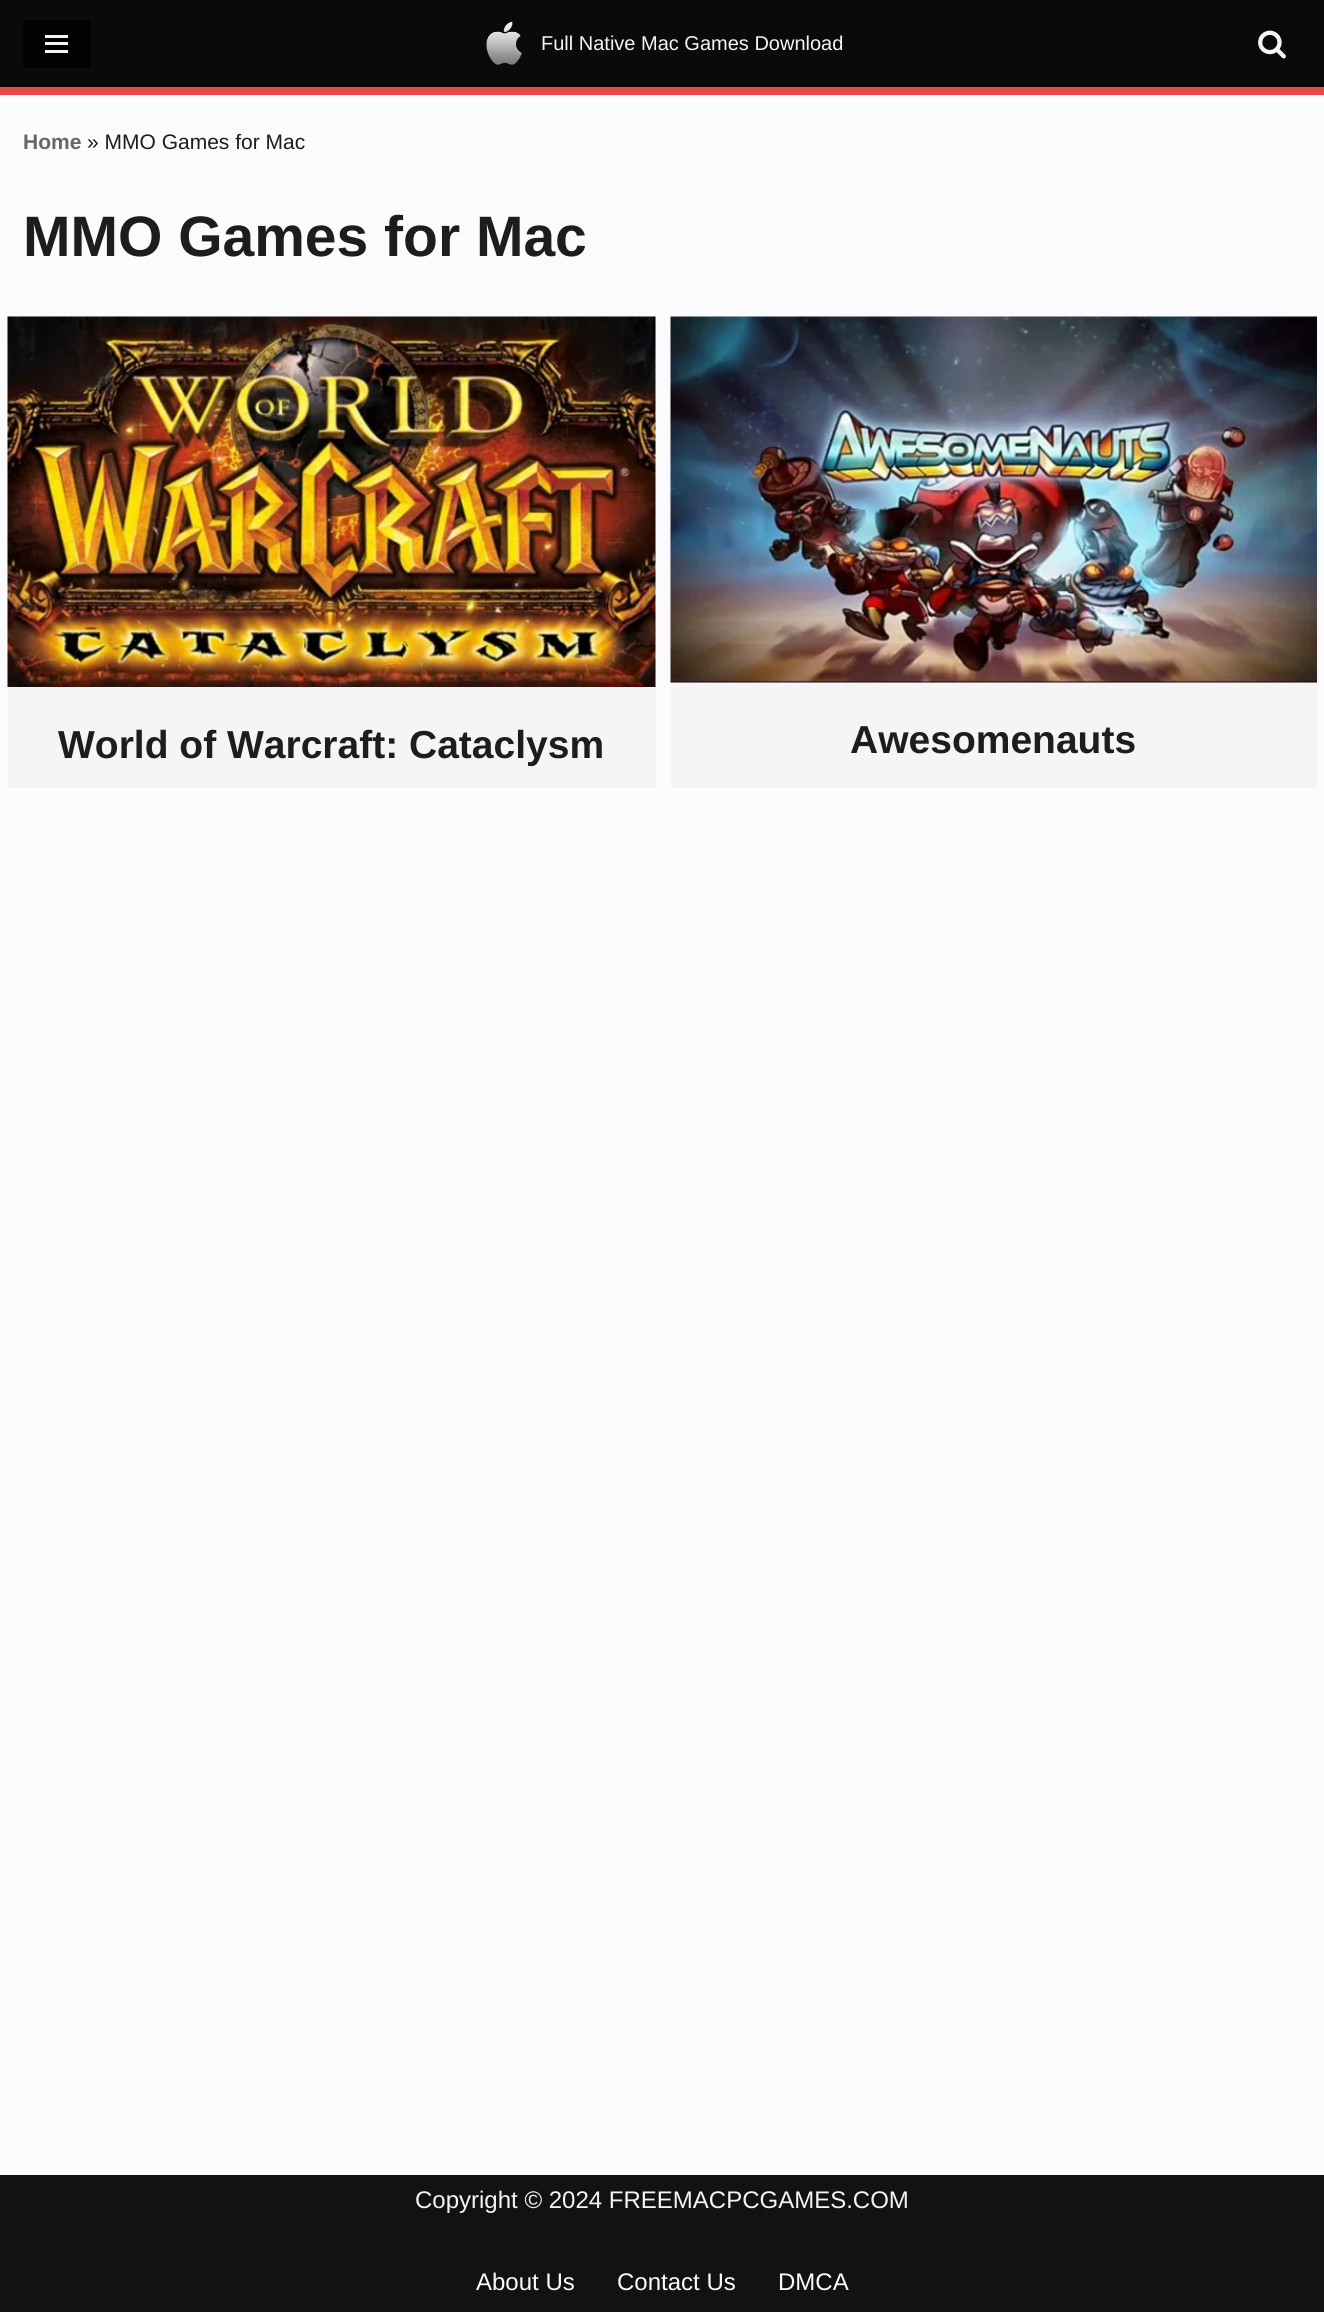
import math
import cairo


def use_color(cr, r, g, b):
  cr.set_source_rgb(r / 255, g / 255, b / 255)

def text(cr, x, y, s, family, size, color, bold=False, italic=False):
  cr.select_font_face(family, cairo.FONT_SLANT_ITALIC if italic else cairo.FONT_SLANT_NORMAL, cairo.FONT_WEIGHT_BOLD if bold else cairo.FONT_WEIGHT_NORMAL)
  cr.set_font_size(size)
  use_color(cr, *color)
  cr.move_to(x, y)
  cr.show_text(s)

def box(cr, x, y, w, h, *color):
  use_color(cr, *color)
  cr.rectangle(x, y, w, h)
  cr.fill()

def picture(cr, path, x, y, w, h):
  cr.save()
  cr.set_source_surface(cairo.ImageSurface.create_from_png(path), x, y)
  cr.rectangle(x, y, w, h)
  cr.fill()
  cr.restore()

def draw(cr):
  use_color(cr, 251, 251, 253)
  cr.paint()
  box(cr, 0, 87, 1324, 8, 230, 73, 70)
  box(cr, 0, 0, 1324, 87, 10, 10, 10)
  box(cr, 23, 20, 67, 48, 2, 2, 2)
  box(cr, 45, 35, 23, 3, 245, 245, 247)
  box(cr, 45, 42, 23, 3, 245, 245, 247)
  box(cr, 45, 50, 23, 3, 245, 245, 247)
  picture(cr, "img_01.png", 486, 21, 36, 44)
  picture(cr, "img_02.png", 1258, 30, 28, 29)
  box(cr, 8, 317, 648, 471, 245, 245, 247)
  picture(cr, "img_03.png", 7, 316, 649, 371)
  box(cr, 671, 682, 646, 106, 245, 245, 247)
  picture(cr, "img_04.png", 670, 316, 647, 367)
  box(cr, 0, 2175, 1324, 137, 18, 18, 18)
  text(cr, 541, 50, "Full Native Mac Games Download", "Liberation Sans", 20, (245, 245, 247))
  text(cr, 23, 149, "Home", "Liberation Sans", 21, (103, 103, 103), bold=True)
  text(cr, 87, 149, "» MMO Games for Mac", "Liberation Sans", 21, (29, 29, 31))
  text(cr, 23, 256, "MMO Games for Mac", "Liberation Sans", 57, (29, 29, 31), bold=True)
  text(cr, 58, 758, "World of Warcraft: Cataclysm", "Liberation Sans", 39, (29, 29, 31), bold=True)
  text(cr, 850, 753, "Awesomenauts", "Liberation Sans", 39, (29, 29, 31), bold=True)
  text(cr, 415, 2208, "Copyright © 2024 FREEMACPCGAMES.COM", "Liberation Sans", 24, (245, 245, 247))
  text(cr, 476, 2290, "About Us", "Liberation Sans", 24, (251, 251, 253))
  text(cr, 617, 2290, "Contact Us", "Liberation Sans", 24, (251, 251, 253))
  text(cr, 778, 2290, "DMCA", "Liberation Sans", 24, (251, 251, 253))


surface = cairo.ImageSurface(cairo.FORMAT_RGB24, 1324, 2312)
cr = cairo.Context(surface)
options = cairo.FontOptions()
options.set_hint_metrics(cairo.HINT_METRICS_OFF)
options.set_hint_style(cairo.HINT_STYLE_NONE)
cr.set_font_options(options)
cr.set_miter_limit(4)
draw(cr)
surface.write_to_png("out.png")
